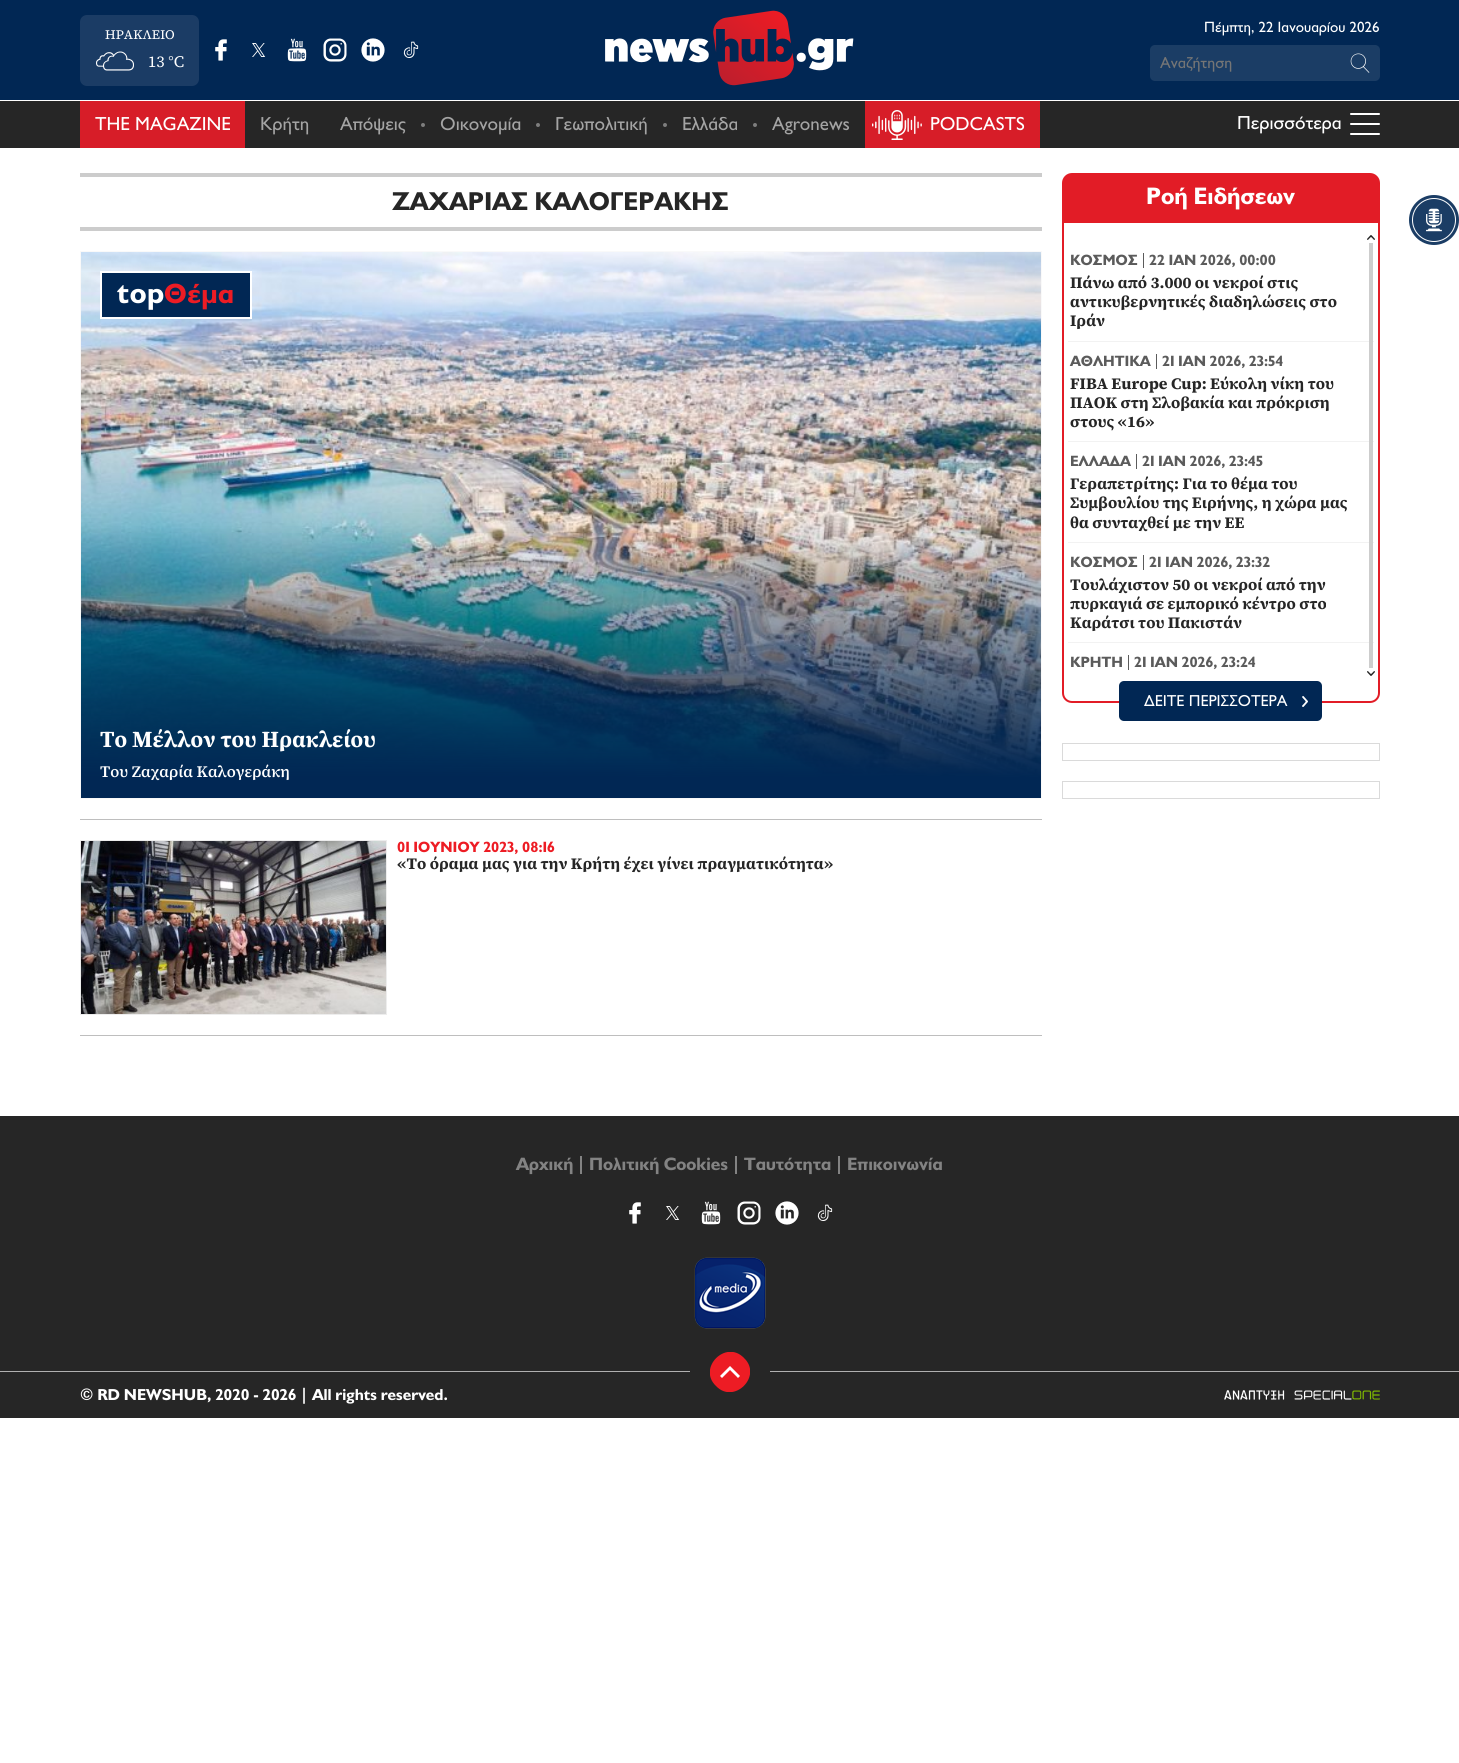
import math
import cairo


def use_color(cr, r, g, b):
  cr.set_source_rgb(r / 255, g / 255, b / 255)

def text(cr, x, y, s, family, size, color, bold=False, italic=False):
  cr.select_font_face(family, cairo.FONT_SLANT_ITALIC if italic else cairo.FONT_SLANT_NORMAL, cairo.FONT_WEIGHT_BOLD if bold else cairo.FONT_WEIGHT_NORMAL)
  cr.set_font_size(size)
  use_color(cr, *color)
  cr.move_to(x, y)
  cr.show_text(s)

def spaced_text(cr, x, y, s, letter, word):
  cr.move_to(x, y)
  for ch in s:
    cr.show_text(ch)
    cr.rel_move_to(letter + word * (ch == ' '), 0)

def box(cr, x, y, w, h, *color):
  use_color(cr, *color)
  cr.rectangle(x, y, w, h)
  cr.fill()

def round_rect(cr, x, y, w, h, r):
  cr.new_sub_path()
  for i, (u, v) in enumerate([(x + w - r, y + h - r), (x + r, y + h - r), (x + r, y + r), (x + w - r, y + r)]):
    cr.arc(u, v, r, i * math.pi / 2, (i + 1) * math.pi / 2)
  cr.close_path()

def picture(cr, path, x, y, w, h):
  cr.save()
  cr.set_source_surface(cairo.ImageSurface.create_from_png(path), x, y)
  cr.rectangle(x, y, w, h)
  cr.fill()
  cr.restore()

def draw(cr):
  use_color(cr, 255, 255, 255)
  cr.paint()
  box(cr, 0, 0, 1459, 100, 1, 39, 84)
  use_color(cr, 27, 60, 101)
  round_rect(cr, 80, 15, 119, 71, 7)
  cr.fill()
  picture(cr, "img_01.png", 96, 51, 38, 20)
  picture(cr, "img_02.png", 215, 39, 12, 22)
  picture(cr, "img_03.png", 252, 43, 14, 14)
  picture(cr, "img_04.png", 287, 38, 20, 24)
  picture(cr, "img_05.png", 323, 38, 24, 24)
  picture(cr, "img_06.png", 361, 38, 24, 24)
  picture(cr, "img_07.png", 403, 41, 16, 17)
  picture(cr, "img_08.png", 605, 10, 249, 76)
  use_color(cr, 27, 61, 101)
  round_rect(cr, 1150, 45, 230, 36, 5)
  cr.fill()
  picture(cr, "img_09.png", 1350, 53, 20, 20)
  box(cr, 0, 101, 1459, 47, 38, 38, 38)
  box(cr, 80, 101, 165, 47, 215, 29, 40)
  use_color(cr, 125, 125, 125)
  cr.arc(423, 125, 2, 0, 2 * math.pi)
  cr.fill()
  cr.arc(538, 125, 2, 0, 2 * math.pi)
  cr.fill()
  cr.arc(665, 125, 2, 0, 2 * math.pi)
  cr.fill()
  cr.arc(755, 125, 2, 0, 2 * math.pi)
  cr.fill()
  box(cr, 865, 101, 175, 47, 215, 29, 40)
  picture(cr, "img_10.png", 872, 110, 50, 30)
  use_color(cr, 255, 255, 255)
  round_rect(cr, 1350, 113, 30, 2, 1)
  cr.fill()
  round_rect(cr, 1350, 123, 30, 2, 1)
  cr.fill()
  round_rect(cr, 1350, 133, 30, 2, 1)
  cr.fill()
  box(cr, 80, 173, 962, 4, 204, 204, 204)
  box(cr, 80, 227, 962, 4, 204, 204, 204)
  box(cr, 80, 819, 962, 1, 190, 190, 190)
  cr.rectangle(80.5, 251.5, 961, 547)
  use_color(cr, 249, 249, 249)
  cr.set_line_width(1)
  cr.stroke()
  picture(cr, "img_11.png", 81, 252, 960, 546)
  use_color(cr, 1, 39, 84)
  cr.rectangle(101, 272, 150, 46)
  cr.fill_preserve()
  use_color(cr, 255, 255, 255)
  cr.set_line_width(2)
  cr.stroke()
  box(cr, 80, 1035, 962, 1, 190, 190, 190)
  cr.rectangle(80.5, 840.5, 306, 174)
  use_color(cr, 237, 237, 237)
  cr.set_line_width(1)
  cr.stroke()
  picture(cr, "img_12.png", 81, 841, 305, 173)
  use_color(cr, 226, 28, 38)
  cr.new_path()
  cr.move_to(1072, 173)
  cr.line_to(1370, 173)
  cr.curve_to(1375.5, 173, 1380, 177.5, 1380, 183)
  cr.line_to(1380, 221)
  cr.line_to(1062, 221)
  cr.line_to(1062, 183)
  cr.curve_to(1062, 177.5, 1066.5, 173, 1072, 173)
  cr.close_path()
  cr.fill()
  cr.new_path()
  cr.move_to(1063, 222)
  cr.line_to(1379, 222)
  cr.line_to(1379, 693)
  cr.curve_to(1379, 698, 1375, 702, 1370, 702)
  cr.line_to(1072, 702)
  cr.curve_to(1067, 702, 1063, 698, 1063, 693)
  cr.close_path()
  cr.set_line_width(2)
  cr.stroke()
  picture(cr, "img_13.png", 1367, 235, 8, 5)
  box(cr, 1143, 253, 1, 15, 91, 91, 91)
  box(cr, 1068, 341, 306, 1, 242, 242, 242)
  box(cr, 1068, 441, 306, 1, 242, 242, 242)
  box(cr, 1068, 542, 306, 1, 242, 242, 242)
  box(cr, 1068, 642, 306, 1, 242, 242, 242)
  box(cr, 1369, 243, 4, 425, 205, 205, 205)
  box(cr, 1156, 354, 1, 15, 91, 91, 91)
  box(cr, 1136, 454, 1, 15, 91, 91, 91)
  box(cr, 1143, 555, 1, 15, 91, 91, 91)
  box(cr, 1128, 655, 1, 15, 91, 91, 91)
  picture(cr, "img_14.png", 1367, 671, 8, 5)
  use_color(cr, 1, 39, 84)
  round_rect(cr, 1119, 681, 203, 40, 5)
  cr.fill()
  picture(cr, "img_15.png", 1302, 696, 6, 11)
  cr.rectangle(1062.5, 743.5, 317, 17)
  use_color(cr, 218, 218, 218)
  cr.set_line_width(1)
  cr.stroke()
  cr.rectangle(1062.5, 781.5, 317, 17)
  cr.stroke()
  use_color(cr, 27, 61, 101)
  cr.arc(1434, 220, 25, 0, 2 * math.pi)
  cr.fill()
  cr.arc(1434, 220, 21.5, 0, 2 * math.pi)
  use_color(cr, 255, 255, 255)
  cr.stroke()
  picture(cr, "img_16.png", 1426, 208, 16, 24)
  box(cr, 0, 1116, 1459, 302, 38, 38, 38)
  box(cr, 580, 1156, 2, 18, 131, 131, 131)
  box(cr, 735, 1156, 2, 18, 131, 131, 131)
  box(cr, 838, 1156, 2, 18, 131, 131, 131)
  picture(cr, "img_17.png", 629, 1202, 12, 22)
  picture(cr, "img_18.png", 666, 1206, 14, 14)
  picture(cr, "img_19.png", 701, 1201, 20, 24)
  picture(cr, "img_20.png", 737, 1201, 24, 24)
  picture(cr, "img_21.png", 775, 1201, 24, 24)
  picture(cr, "img_22.png", 817, 1204, 16, 17)
  picture(cr, "img_23.png", 694, 1257, 72, 72)
  box(cr, 0, 1371, 1459, 1, 176, 176, 176)
  box(cr, 690, 1371, 80, 1, 38, 38, 38)
  cr.save()
  cr.rectangle(710, 1352, 40, 40)
  cr.clip()
  use_color(cr, 237, 28, 36)
  cr.new_path()
  cr.move_to(744, 1358)
  cr.curve_to(763, 1376, 734, 1405, 716, 1386)
  cr.curve_to(697, 1368, 726, 1339, 744, 1358)
  cr.fill()
  cr.restore()
  use_color(cr, 255, 255, 255)
  cr.set_fill_rule(cairo.FILL_RULE_EVEN_ODD)
  cr.new_path()
  cr.move_to(740, 1376)
  cr.line_to(730, 1366)
  cr.line_to(720, 1376)
  cr.line_to(722, 1378)
  cr.line_to(730, 1370)
  cr.line_to(738, 1378)
  cr.close_path()
  cr.fill()
  picture(cr, "img_24.png", 1224, 1390, 156, 10)
  text(cr, 105, 39, "ΗΡΑΚΛΕΙΟ", "Source Serif 4", 13, (255, 255, 255))
  text(cr, 148, 67, "13 °C", "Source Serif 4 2", 16, (255, 255, 255))
  text(cr, 1204, 32, "Πέμπτη, 22 Ιανουαρίου 2026", "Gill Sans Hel", 15, (255, 255, 255))
  text(cr, 1160, 68, "Αναζήτηση", "Gill Sans Hel", 16, (117, 117, 117))
  text(cr, 95, 130, "THE MAGAZINE", "Gill Sans Hel", 19, (255, 255, 255))
  text(cr, 260, 130, "Κρήτη", "Gill Sans Hel", 19, (164, 164, 164))
  text(cr, 340, 130, "Απόψεις", "Gill Sans Hel", 19, (164, 164, 164))
  text(cr, 440, 130, "Οικονομία", "Gill Sans Hel", 19, (164, 164, 164))
  text(cr, 555, 130, "Γεωπολιτική", "Gill Sans Hel", 19, (164, 164, 164))
  text(cr, 682, 130, "Ελλάδα", "Gill Sans Hel", 19, (164, 164, 164))
  text(cr, 772, 130, "Agronews", "Gill Sans Hel", 19, (164, 164, 164))
  text(cr, 930, 130, "PODCASTS", "Gill Sans Hel", 19, (255, 255, 255))
  text(cr, 1237, 129, "Περισσότερα", "Gill Sans Hel", 19, (255, 255, 255))
  text(cr, 392, 210, "ΖΑΧΑΡΙΑΣ ΚΑΛΟΓΕΡΑΚΗΣ", "Gill Sans Hel", 26, (38, 38, 38), bold=True)
  cr.set_font_size(30)
  use_color(cr, 255, 255, 255)
  spaced_text(cr, 117, 303, "top", 0.5, 0)
  cr.set_font_size(28)
  use_color(cr, 237, 28, 36)
  spaced_text(cr, 164, 303, "Θέμα", 0.5, 0)
  text(cr, 100, 747, "Tο Μέλλον του Ηρακλείου", "Source Serif 4", 23, (255, 255, 255), bold=True)
  text(cr, 100, 777, "Του Ζαχαρία Καλογεράκη", "Source Serif 4 SemiBold", 16, (255, 255, 255))
  text(cr, 397, 852, "01 ΙΟΥΝΙΟΥ 2023, 08:16", "Gill Sans Hel", 15, (237, 28, 36), bold=True)
  text(cr, 397, 869, "«Το όραμα μας για την Κρήτη έχει γίνει πραγματικότητα»", "Source Serif 4 2", 16, (38, 38, 38), bold=True)
  text(cr, 1146, 204, "Ροή Ειδήσεων", "Gill Sans Hel", 24, (255, 255, 255), bold=True)
  text(cr, 1070, 265, "ΚΟΣΜΟΣ", "Gill Sans Hel", 15, (91, 91, 91), bold=True)
  text(cr, 1149, 265, "22 ΙΑΝ 2026, 00:00", "Gill Sans Hel", 15, (91, 91, 91), bold=True)
  text(cr, 1070, 288, "Πάνω από 3.000 οι νεκροί στις", "Source Serif 4 2", 16, (38, 38, 38), bold=True)
  text(cr, 1070, 307, "αντικυβερνητικές διαδηλώσεις στο", "Source Serif 4 2", 16, (38, 38, 38), bold=True)
  text(cr, 1070, 326, "Ιράν", "Source Serif 4 2", 16, (38, 38, 38), bold=True)
  text(cr, 1070, 366, "ΑΘΛΗΤΙΚΑ", "Gill Sans Hel", 15, (91, 91, 91), bold=True)
  text(cr, 1162, 366, "21 ΙΑΝ 2026, 23:54", "Gill Sans Hel", 15, (91, 91, 91), bold=True)
  text(cr, 1070, 389, "FIBA Europe Cup: Εύκολη νίκη του", "Source Serif 4 2", 16, (38, 38, 38), bold=True)
  text(cr, 1070, 408, "ΠΑΟΚ στη Σλοβακία και πρόκριση", "Source Serif 4 2", 16, (38, 38, 38), bold=True)
  text(cr, 1070, 427, "στους «16»", "Source Serif 4 2", 16, (38, 38, 38), bold=True)
  text(cr, 1070, 466, "ΕΛΛΑΔΑ", "Gill Sans Hel", 15, (91, 91, 91), bold=True)
  text(cr, 1142, 466, "21 ΙΑΝ 2026, 23:45", "Gill Sans Hel", 15, (91, 91, 91), bold=True)
  text(cr, 1070, 489, "Γεραπετρίτης: Για το θέμα του", "Source Serif 4 2", 16, (38, 38, 38), bold=True)
  text(cr, 1070, 508, "Συμβουλίου της Ειρήνης, η χώρα μας", "Source Serif 4 2", 16, (38, 38, 38), bold=True)
  text(cr, 1070, 528, "θα συνταχθεί με την ΕΕ", "Source Serif 4 2", 16, (38, 38, 38), bold=True)
  text(cr, 1070, 567, "ΚΟΣΜΟΣ", "Gill Sans Hel", 15, (91, 91, 91), bold=True)
  text(cr, 1149, 567, "21 ΙΑΝ 2026, 23:32", "Gill Sans Hel", 15, (91, 91, 91), bold=True)
  text(cr, 1070, 590, "Τουλάχιστον 50 οι νεκροί από την", "Source Serif 4 2", 16, (38, 38, 38), bold=True)
  text(cr, 1070, 609, "πυρκαγιά σε εμπορικό κέντρο στο", "Source Serif 4 2", 16, (38, 38, 38), bold=True)
  text(cr, 1070, 628, "Καράτσι του Πακιστάν", "Source Serif 4 2", 16, (38, 38, 38), bold=True)
  text(cr, 1070, 667, "ΚΡΗΤΗ", "Gill Sans Hel", 15, (91, 91, 91), bold=True)
  text(cr, 1134, 667, "21 ΙΑΝ 2026, 23:24", "Gill Sans Hel", 15, (91, 91, 91), bold=True)
  text(cr, 1144, 706, "ΔΕΙΤΕ ΠΕΡΙΣΣΟΤΕΡΑ", "Gill Sans Hel", 16, (255, 255, 255))
  text(cr, 516, 1170, "Αρχική", "Gill Sans Hel", 18, (131, 131, 131), bold=True)
  text(cr, 589, 1170, "Πολιτική Cookies", "Gill Sans Hel", 18, (131, 131, 131), bold=True)
  text(cr, 744, 1170, "Ταυτότητα", "Gill Sans Hel", 18, (131, 131, 131), bold=True)
  text(cr, 847, 1170, "Επικοινωνία", "Gill Sans Hel", 18, (131, 131, 131), bold=True)
  text(cr, 80, 1400, "© RD NEWSHUB, 2020 - 2026 | All rights reserved.", "Gill Sans Hel", 16, (255, 255, 255), bold=True)


surface = cairo.ImageSurface(cairo.FORMAT_RGB24, 1459, 1763)
cr = cairo.Context(surface)
options = cairo.FontOptions()
options.set_hint_metrics(cairo.HINT_METRICS_OFF)
options.set_hint_style(cairo.HINT_STYLE_NONE)
cr.set_font_options(options)
cr.set_miter_limit(4)
draw(cr)
surface.write_to_png("out.png")
